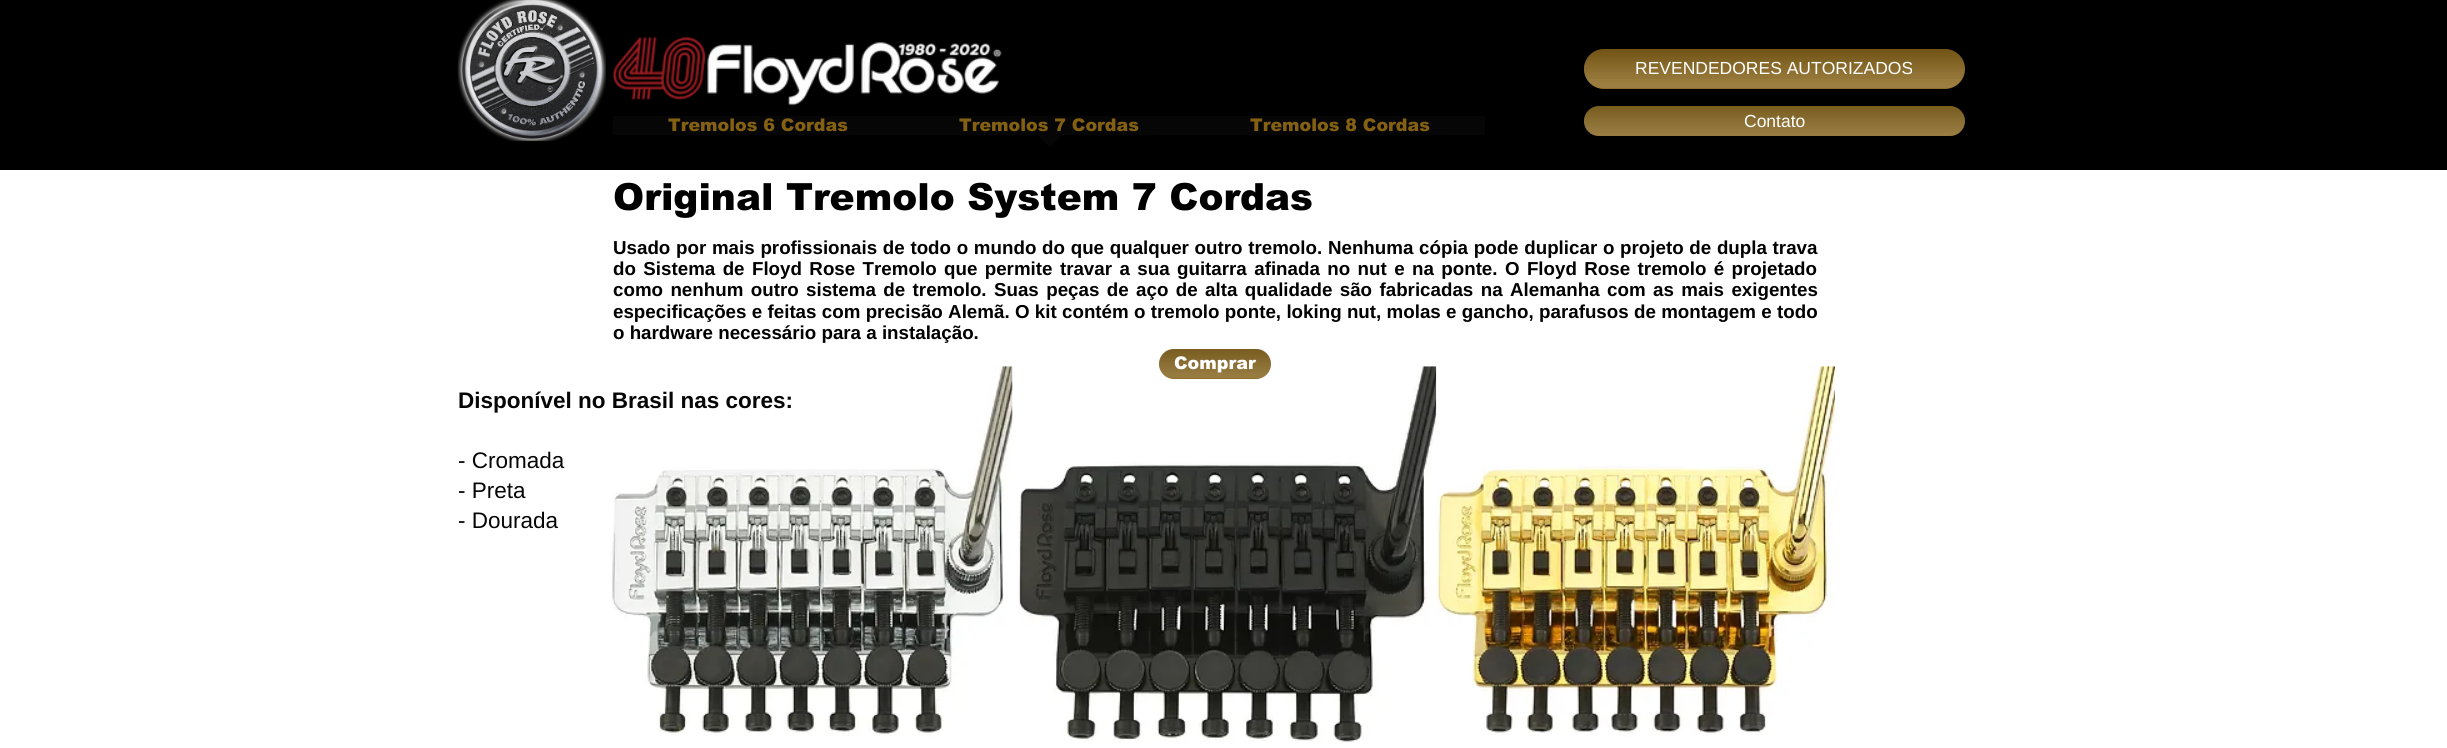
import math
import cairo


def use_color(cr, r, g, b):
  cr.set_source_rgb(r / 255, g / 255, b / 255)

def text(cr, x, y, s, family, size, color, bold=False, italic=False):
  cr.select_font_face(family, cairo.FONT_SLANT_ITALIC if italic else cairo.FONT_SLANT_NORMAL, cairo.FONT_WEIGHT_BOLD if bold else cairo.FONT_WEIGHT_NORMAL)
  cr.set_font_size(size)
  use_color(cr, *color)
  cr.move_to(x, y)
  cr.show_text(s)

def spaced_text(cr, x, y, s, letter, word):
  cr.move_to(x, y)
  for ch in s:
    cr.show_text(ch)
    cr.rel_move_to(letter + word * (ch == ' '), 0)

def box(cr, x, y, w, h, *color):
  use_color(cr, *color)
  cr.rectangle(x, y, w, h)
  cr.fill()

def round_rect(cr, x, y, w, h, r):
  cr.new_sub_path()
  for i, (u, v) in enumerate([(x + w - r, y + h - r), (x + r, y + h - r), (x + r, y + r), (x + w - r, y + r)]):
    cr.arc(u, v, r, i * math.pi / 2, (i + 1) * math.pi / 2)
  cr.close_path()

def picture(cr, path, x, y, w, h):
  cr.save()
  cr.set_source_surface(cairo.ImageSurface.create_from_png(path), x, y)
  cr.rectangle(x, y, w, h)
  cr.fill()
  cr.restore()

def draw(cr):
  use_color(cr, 255, 255, 255)
  cr.paint()
  box(cr, 0, 0, 2447, 170, 0, 0, 0)
  picture(cr, "img_01.png", 457, 0, 149, 142)
  picture(cr, "img_02.png", 612, 37, 390, 69)
  use_color(cr, 132, 96, 19)
  round_rect(cr, 1584, 49, 381, 40, 20)
  cr.fill()
  picture(cr, "img_03.png", 1584, 49, 381, 30)
  picture(cr, "img_04.png", 1584, 49, 381, 40)
  box(cr, 613, 116, 872, 19, 6, 6, 6)
  cr.new_path()
  cr.move_to(1037.5, 135)
  cr.line_to(1062.5, 135)
  cr.line_to(1050, 147.5)
  cr.close_path()
  cr.fill()
  use_color(cr, 132, 96, 19)
  round_rect(cr, 1584, 106, 381, 30, 15)
  cr.fill()
  picture(cr, "img_05.png", 1584, 106, 381, 30)
  picture(cr, "img_06.png", 1584, 106, 381, 30)
  picture(cr, "img_07.png", 609, 366, 404, 371)
  picture(cr, "img_11.png", 1433, 366, 402, 371)
  picture(cr, "img_10.png", 1018, 366, 419, 376)
  round_rect(cr, 1159, 349, 112, 30, 15)
  cr.fill()
  picture(cr, "img_08.png", 1159, 349, 112, 29)
  picture(cr, "img_09.png", 1159, 349, 112, 30)
  text(cr, 1635, 74, "REVENDEDORES AUTORIZADOS", "Liberation Sans", 17.5, (255, 255, 255))
  text(cr, 668, 131, "Tremolos 6 Cordas", "arial Black", 17.5, (132, 96, 19))
  text(cr, 959, 131, "Tremolos 7 Cordas", "arial Black", 17.5, (132, 96, 19))
  text(cr, 1250, 131, "Tremolos 8 Cordas", "arial Black", 17.5, (132, 96, 19))
  text(cr, 1744, 127, "Contato", "Liberation Sans", 17.5, (255, 255, 255))
  text(cr, 613, 210, "Original Tremolo System 7 Cordas", "arial Black", 37.5, (0, 0, 0))
  cr.select_font_face("Liberation Sans", cairo.FONT_SLANT_NORMAL, cairo.FONT_WEIGHT_BOLD)
  cr.set_font_size(18.75)
  spaced_text(cr, 613, 254, "Usado por mais profissionais de todo o mundo do que qualquer outro tremolo. Nenhuma cópia pode duplicar o projeto de dupla trava", 0, 0.5)
  spaced_text(cr, 613, 275, "do Sistema de Floyd Rose Tremolo que permite travar a sua guitarra afinada no nut e na ponte. O Floyd Rose tremolo é projetado", 0, 2.2)
  spaced_text(cr, 613, 296, "como nenhum outro sistema de tremolo. Suas peças de aço de alta qualidade são fabricadas na Alemanha com as mais exigentes", 0, 2.2)
  spaced_text(cr, 613, 318, "especificações e feitas com precisão Alemã. O kit contém o tremolo ponte, loking nut, molas e gancho, parafusos de montagem e todo", 0, 0.1)
  text(cr, 613, 339, "o hardware necessário para a instalação.", "Liberation Sans", 18.75, (0, 0, 0), bold=True)
  text(cr, 1174, 369, "Comprar", "arial Black", 17.5, (255, 255, 255))
  text(cr, 458, 408, "Disponível no Brasil nas cores:", "Liberation Sans", 22.5, (6, 6, 6), bold=True)
  text(cr, 458, 468, "- Cromada", "Liberation Sans", 22.5, (6, 6, 6))
  text(cr, 458, 498, "- Preta", "Liberation Sans", 22.5, (6, 6, 6))
  text(cr, 458, 528, "- Dourada", "Liberation Sans", 22.5, (6, 6, 6))


surface = cairo.ImageSurface(cairo.FORMAT_RGB24, 2447, 748)
cr = cairo.Context(surface)
options = cairo.FontOptions()
options.set_hint_metrics(cairo.HINT_METRICS_OFF)
options.set_hint_style(cairo.HINT_STYLE_NONE)
cr.set_font_options(options)
cr.set_miter_limit(4)
draw(cr)
surface.write_to_png("out.png")
